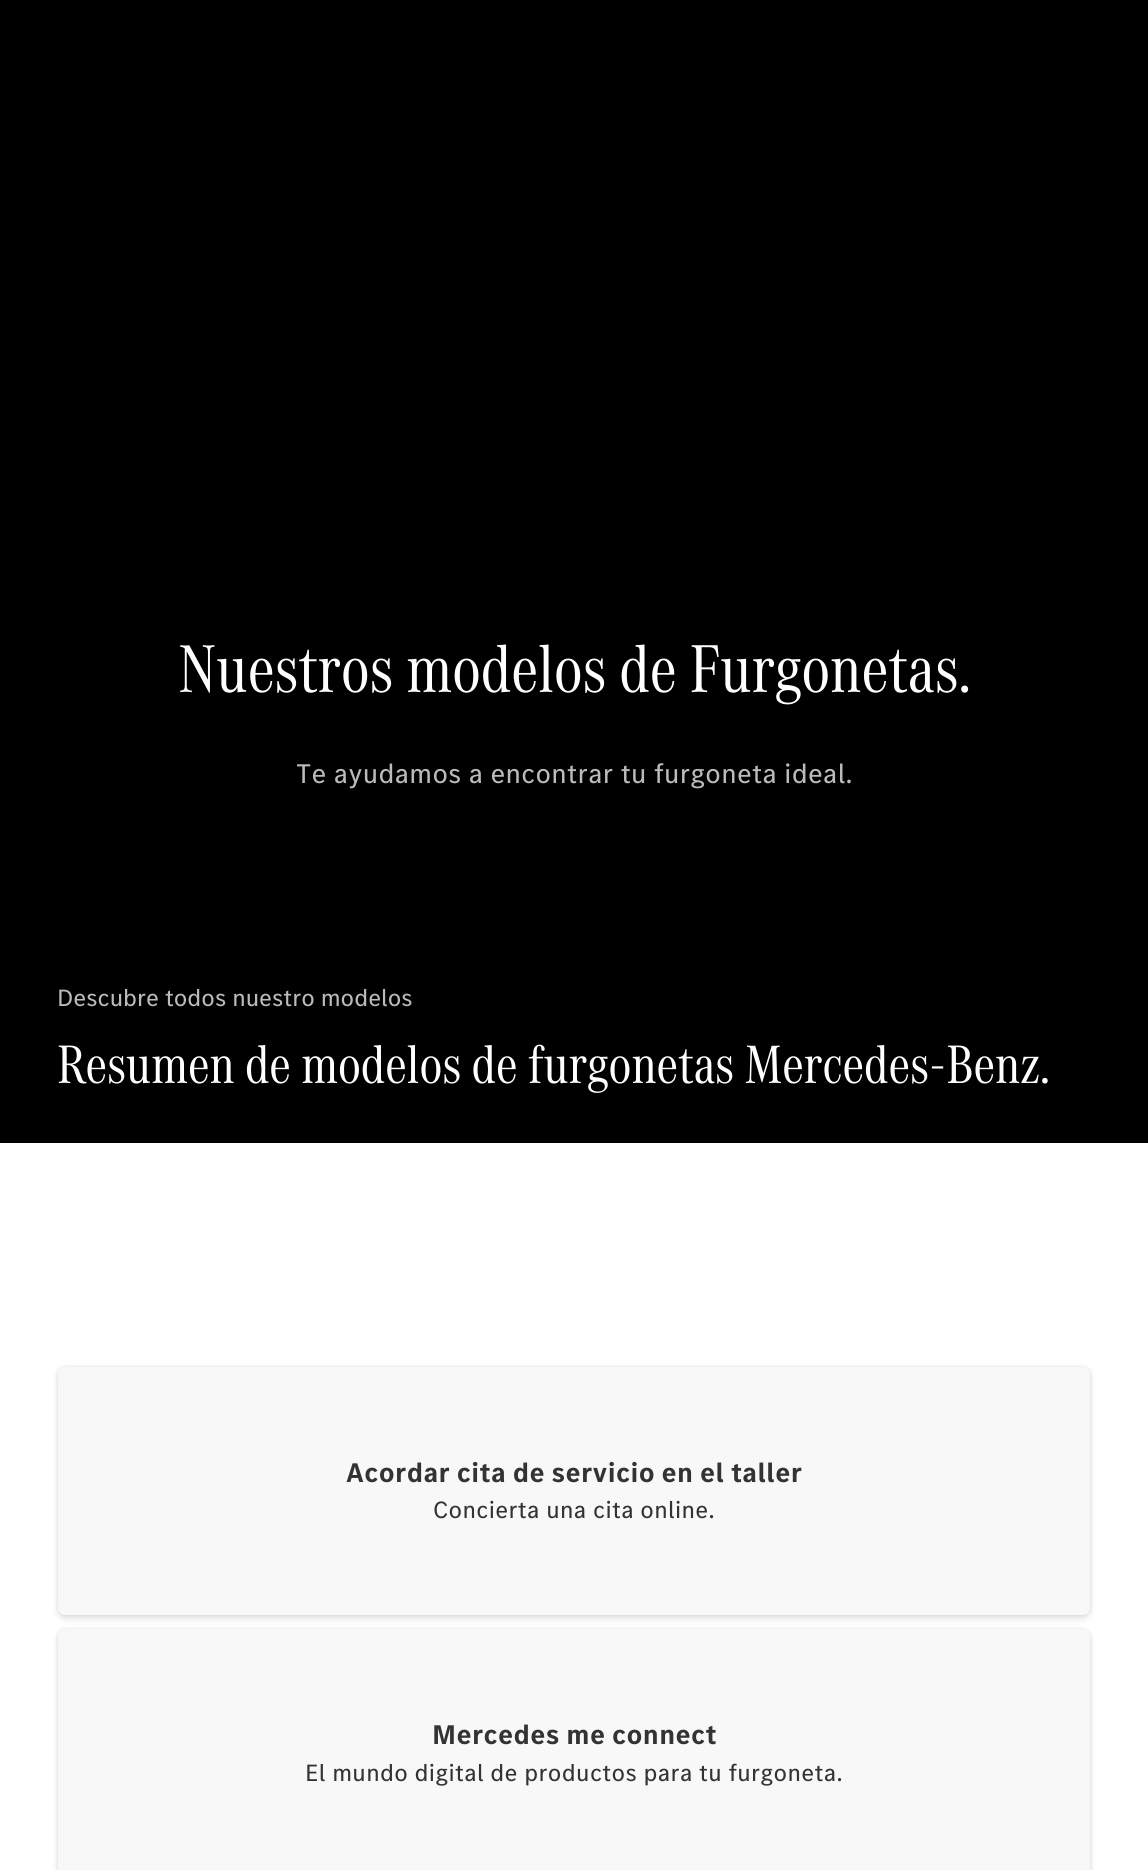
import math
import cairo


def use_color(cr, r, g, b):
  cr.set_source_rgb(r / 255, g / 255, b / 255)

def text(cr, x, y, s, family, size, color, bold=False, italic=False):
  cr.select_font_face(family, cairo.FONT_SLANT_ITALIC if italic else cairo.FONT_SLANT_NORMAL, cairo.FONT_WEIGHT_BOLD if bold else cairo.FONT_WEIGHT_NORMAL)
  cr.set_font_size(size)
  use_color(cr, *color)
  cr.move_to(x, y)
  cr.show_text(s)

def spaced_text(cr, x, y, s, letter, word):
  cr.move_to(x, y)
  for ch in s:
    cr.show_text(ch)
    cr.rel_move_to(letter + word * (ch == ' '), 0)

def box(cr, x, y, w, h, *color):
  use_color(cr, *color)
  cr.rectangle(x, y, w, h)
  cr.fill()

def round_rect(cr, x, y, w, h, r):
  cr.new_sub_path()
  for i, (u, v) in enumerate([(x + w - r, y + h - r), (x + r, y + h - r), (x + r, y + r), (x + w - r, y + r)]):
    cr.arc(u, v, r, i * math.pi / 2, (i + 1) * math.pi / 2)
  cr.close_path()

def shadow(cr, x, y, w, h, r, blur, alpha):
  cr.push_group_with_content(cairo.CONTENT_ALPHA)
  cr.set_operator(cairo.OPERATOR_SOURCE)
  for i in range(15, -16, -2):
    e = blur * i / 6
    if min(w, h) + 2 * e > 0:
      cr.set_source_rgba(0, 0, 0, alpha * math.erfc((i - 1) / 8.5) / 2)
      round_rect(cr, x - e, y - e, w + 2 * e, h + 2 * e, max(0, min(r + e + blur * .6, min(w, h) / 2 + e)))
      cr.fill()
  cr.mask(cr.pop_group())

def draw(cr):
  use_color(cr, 255, 255, 255)
  cr.paint()
  box(cr, 0, 0, 1148, 1143, 0, 0, 0)
  use_color(cr, 0, 0, 0)
  shadow(cr, 58, 1370, 1032, 249, 7, 3.5, 0.1)
  shadow(cr, 58, 1367, 1032, 248, 7, 2, 0.1)
  use_color(cr, 248, 248, 248)
  round_rect(cr, 58, 1367, 1032, 248, 7)
  cr.fill()
  use_color(cr, 0, 0, 0)
  shadow(cr, 58, 1633, 1032, 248, 7, 3.5, 0.1)
  shadow(cr, 58, 1629, 1032, 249, 7, 2, 0.1)
  use_color(cr, 248, 248, 248)
  round_rect(cr, 58, 1629, 1032, 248, 7)
  cr.fill()
  text(cr, 178, 692, "Nuestros modelos de Furgonetas.", "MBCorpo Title", 70, (255, 255, 255))
  cr.select_font_face("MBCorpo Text")
  cr.set_font_size(28)
  use_color(cr, 187, 187, 187)
  spaced_text(cr, 296, 783, "Te ayudamos a encontrar tu furgoneta ideal.", 0.35, 0)
  text(cr, 57, 1006, "Descubre todos nuestro modelos", "MBCorpo Text", 24.5, (187, 187, 187))
  text(cr, 57, 1083, "Resumen de modelos de furgonetas Mercedes-Benz.", "MBCorpo Title", 56, (255, 255, 255))
  cr.select_font_face("MBCorpo Text", cairo.FONT_SLANT_NORMAL, cairo.FONT_WEIGHT_BOLD)
  cr.set_font_size(28)
  use_color(cr, 51, 51, 51)
  spaced_text(cr, 346, 1482, "Acordar cita de servicio en el taller", 0.35, 0)
  cr.select_font_face("MBCorpo Text")
  cr.set_font_size(24.5)
  spaced_text(cr, 433, 1518, "Concierta una cita online.", 0.35, 0)
  cr.select_font_face("MBCorpo Text", cairo.FONT_SLANT_NORMAL, cairo.FONT_WEIGHT_BOLD)
  cr.set_font_size(28)
  spaced_text(cr, 432, 1744, "Mercedes me connect", 0.35, 0)
  cr.select_font_face("MBCorpo Text")
  cr.set_font_size(24.5)
  spaced_text(cr, 305, 1781, "El mundo digital de productos para tu furgoneta.", 0.35, 0)


surface = cairo.ImageSurface(cairo.FORMAT_RGB24, 1148, 1870)
cr = cairo.Context(surface)
options = cairo.FontOptions()
options.set_hint_metrics(cairo.HINT_METRICS_OFF)
options.set_hint_style(cairo.HINT_STYLE_NONE)
cr.set_font_options(options)
cr.set_miter_limit(4)
draw(cr)
surface.write_to_png("out.png")
